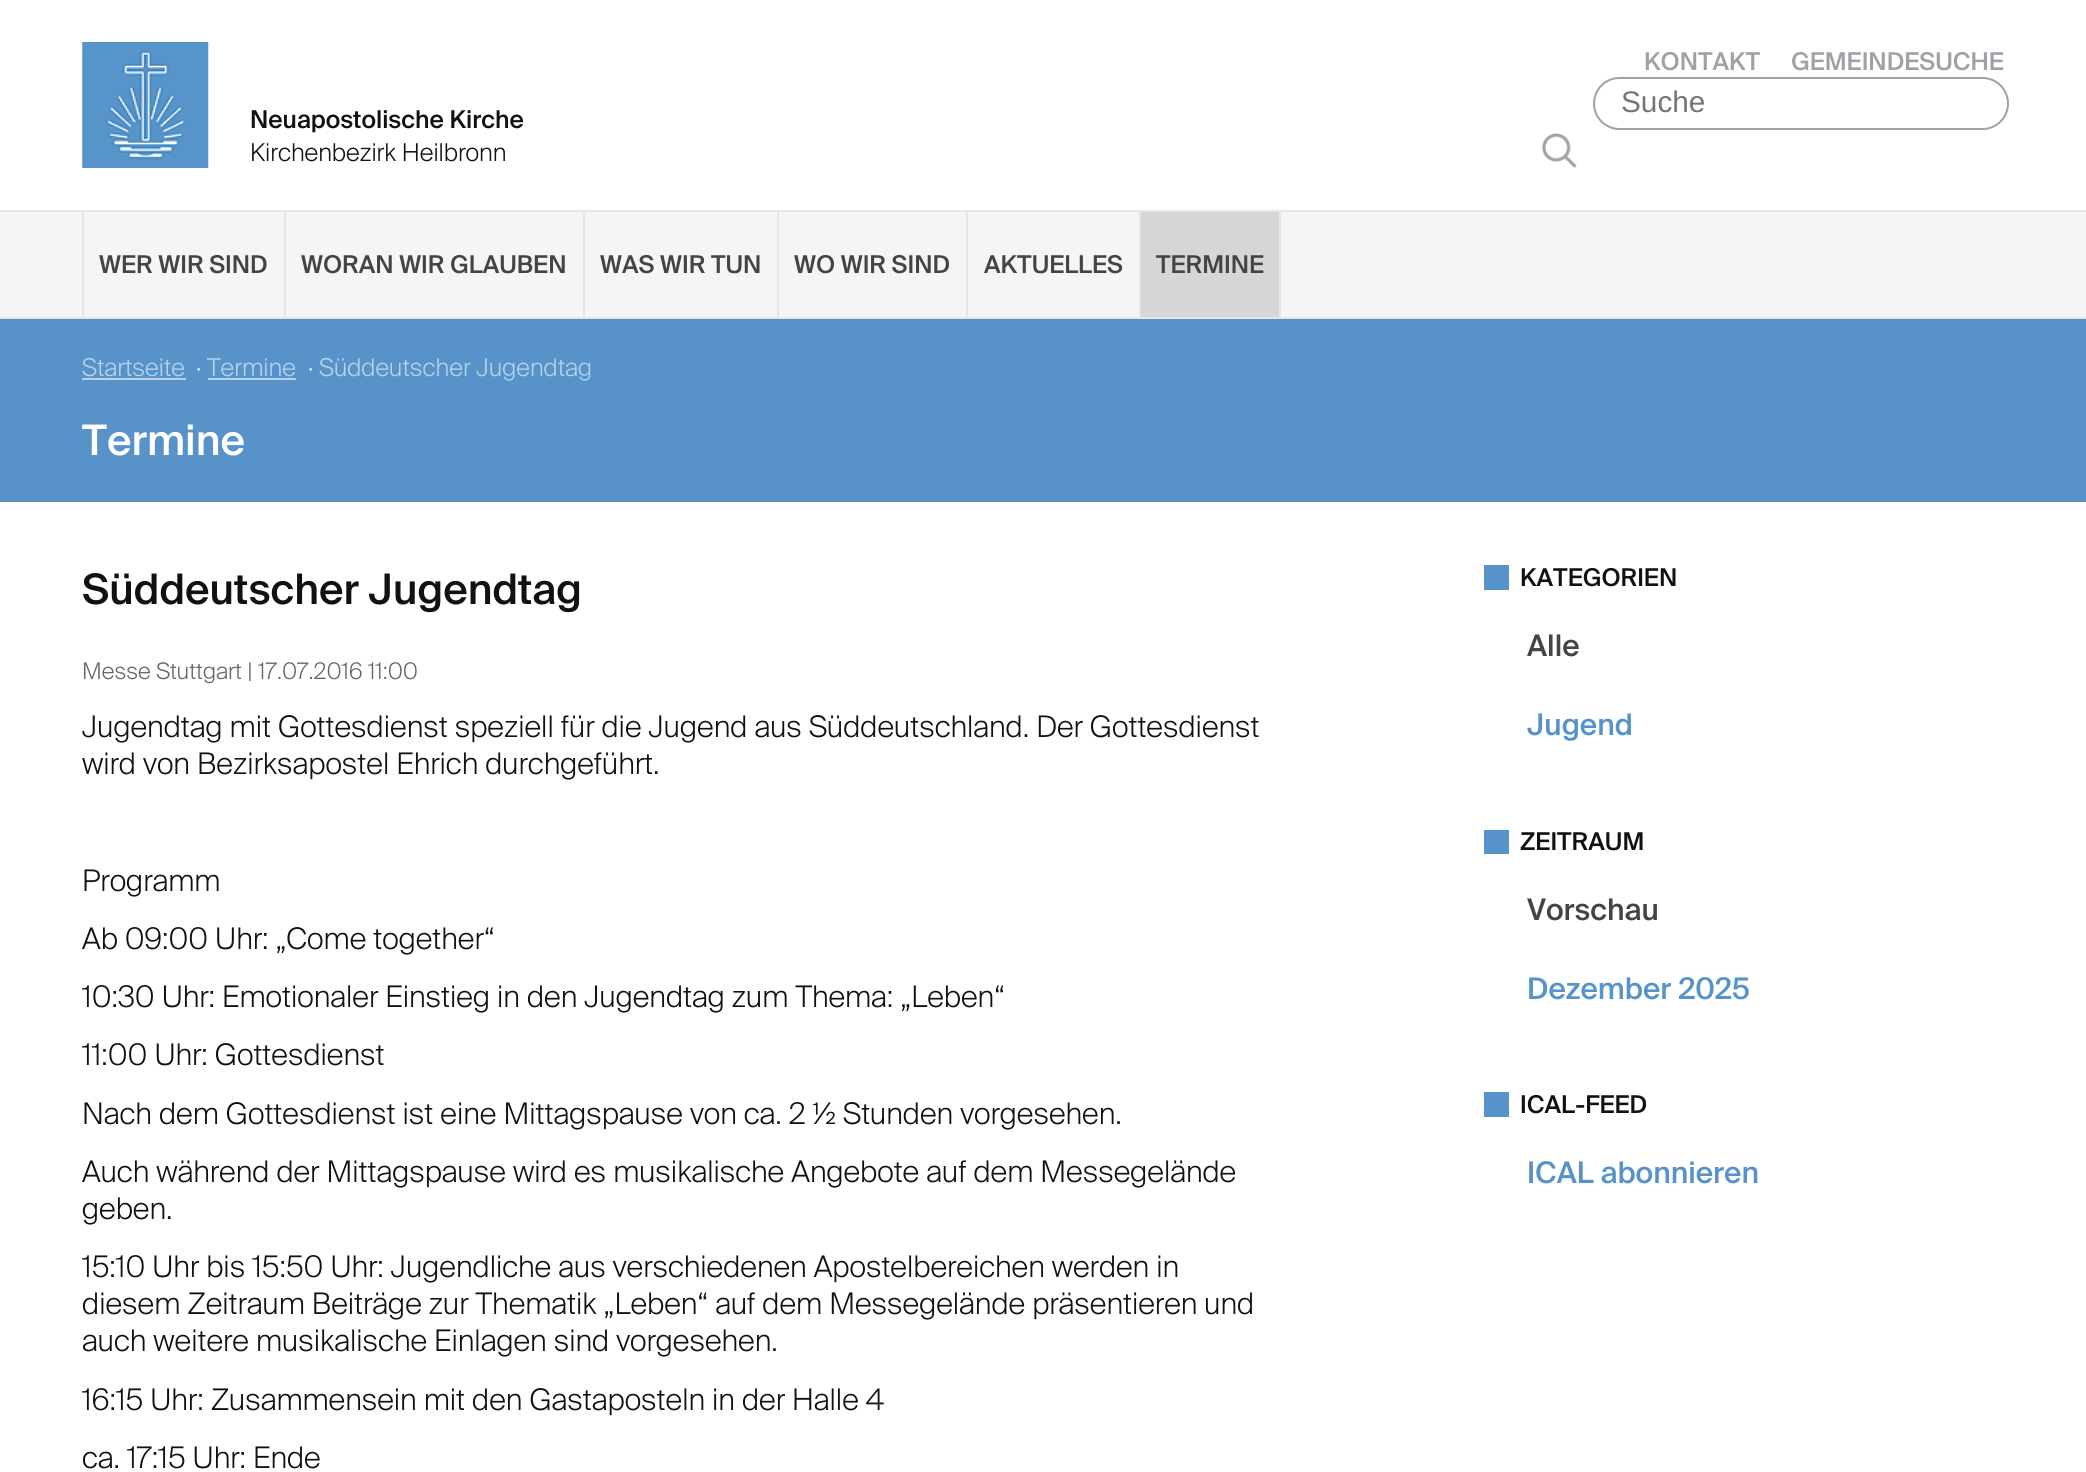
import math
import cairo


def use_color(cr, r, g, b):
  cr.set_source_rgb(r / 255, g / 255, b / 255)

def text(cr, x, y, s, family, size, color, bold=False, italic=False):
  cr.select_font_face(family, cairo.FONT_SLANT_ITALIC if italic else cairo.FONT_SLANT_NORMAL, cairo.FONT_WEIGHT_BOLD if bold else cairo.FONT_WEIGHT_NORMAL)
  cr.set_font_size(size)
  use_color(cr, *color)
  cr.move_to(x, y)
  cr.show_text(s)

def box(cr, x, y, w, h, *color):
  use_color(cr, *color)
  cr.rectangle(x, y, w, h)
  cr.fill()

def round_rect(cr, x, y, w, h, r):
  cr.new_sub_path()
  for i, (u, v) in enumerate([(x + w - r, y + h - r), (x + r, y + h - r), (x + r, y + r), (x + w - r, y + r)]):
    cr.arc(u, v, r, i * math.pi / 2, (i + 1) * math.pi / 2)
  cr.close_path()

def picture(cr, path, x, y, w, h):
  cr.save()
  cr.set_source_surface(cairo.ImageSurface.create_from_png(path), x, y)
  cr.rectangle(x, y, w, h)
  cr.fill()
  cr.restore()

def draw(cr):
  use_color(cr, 255, 255, 255)
  cr.paint()
  round_rect(cr, 1594, 78, 414, 51, 25.5)
  use_color(cr, 158, 161, 166)
  cr.stroke()
  picture(cr, "img_01.png", 1541, 133, 36, 35)
  picture(cr, "img_02.png", 82, 42, 127, 126)
  box(cr, 0, 212, 2086, 105, 245, 245, 245)
  box(cr, 0, 210, 2086, 2, 230, 230, 230)
  box(cr, 0, 317, 2086, 2, 230, 230, 230)
  box(cr, 82, 212, 2, 105, 230, 230, 230)
  box(cr, 284, 212, 2, 105, 230, 230, 230)
  box(cr, 583, 212, 2, 105, 230, 230, 230)
  box(cr, 777, 212, 2, 105, 230, 230, 230)
  box(cr, 966, 212, 2, 105, 230, 230, 230)
  box(cr, 1279, 212, 2, 105, 230, 230, 230)
  box(cr, 1139, 212, 2, 105, 230, 230, 230)
  box(cr, 1141, 212, 138, 105, 214, 214, 214)
  box(cr, 0, 319, 2086, 183, 87, 147, 201)
  box(cr, 82, 378, 104, 2, 183, 210, 235)
  box(cr, 208, 378, 88, 2, 183, 210, 235)
  box(cr, 1484, 565, 25, 25, 87, 147, 201)
  box(cr, 1484, 830, 25, 24, 87, 147, 201)
  box(cr, 1484, 1092, 25, 25, 87, 147, 201)
  text(cr, 1644, 70, "KONTAKT", "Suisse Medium", 24.5, (158, 161, 166))
  text(cr, 1791, 70, "GEMEINDESUCHE", "Suisse Medium", 24.5, (158, 161, 166))
  text(cr, 1621, 112, "Suche", "Liberation Sans", 29.75, (117, 117, 117))
  text(cr, 250, 128, "Neuapostolische Kirche", "Suisse Medium", 24.5, (17, 17, 17))
  text(cr, 250, 161, "Kirchenbezirk Heilbronn", "Suisse Light", 24.5, (17, 17, 17))
  text(cr, 99, 273, "WER WIR SIND", "Suisse Medium", 24.5, (68, 68, 68))
  text(cr, 301, 273, "WORAN WIR GLAUBEN", "Suisse Medium", 24.5, (68, 68, 68))
  text(cr, 600, 273, "WAS WIR TUN", "Suisse Medium", 24.5, (68, 68, 68))
  text(cr, 794, 273, "WO WIR SIND", "Suisse Medium", 24.5, (68, 68, 68))
  text(cr, 984, 273, "AKTUELLES", "Suisse Medium", 24.5, (68, 68, 68))
  text(cr, 1156, 273, "TERMINE", "Suisse Medium", 24.5, (68, 68, 68))
  text(cr, 82, 376, "Startseite", "Suisse Light", 24.5, (183, 210, 235))
  text(cr, 196, 376, "·", "Suisse Light", 24.5, (255, 255, 255))
  text(cr, 207, 376, "Termine", "Suisse Light", 24.5, (183, 210, 235))
  text(cr, 308, 376, "·", "Suisse Light", 24.5, (255, 255, 255))
  text(cr, 319, 376, "Süddeutscher Jugendtag", "Suisse Light", 24.5, (183, 210, 235))
  text(cr, 82, 455, "Termine", "Suisse Medium", 42, (255, 255, 255))
  text(cr, 82, 604, "Süddeutscher Jugendtag", "Suisse Medium", 42, (17, 17, 17))
  text(cr, 82, 679, "Messe Stuttgart | 17.07.2016 11:00", "Suisse Light", 22.75, (102, 102, 102))
  text(cr, 82, 737, "Jugendtag mit Gottesdienst speziell für die Jugend aus Süddeutschland. Der Gottesdienst", "Suisse Light", 29.75, (17, 17, 17))
  text(cr, 82, 774, "wird von Bezirksapostel Ehrich durchgeführt.", "Suisse Light", 29.75, (17, 17, 17))
  text(cr, 82, 891, "Programm", "Suisse Light", 29.75, (17, 17, 17))
  text(cr, 82, 949, "Ab 09:00 Uhr: „Come together“", "Suisse Light", 29.75, (17, 17, 17))
  text(cr, 82, 1007, "10:30 Uhr: Emotionaler Einstieg in den Jugendtag zum Thema: „Leben“", "Suisse Light", 29.75, (17, 17, 17))
  text(cr, 82, 1065, "11:00 Uhr: Gottesdienst", "Suisse Light", 29.75, (17, 17, 17))
  text(cr, 82, 1124, "Nach dem Gottesdienst ist eine Mittagspause von ca. 2 ½ Stunden vorgesehen.", "Suisse Light", 29.75, (17, 17, 17))
  text(cr, 82, 1182, "Auch während der Mittagspause wird es musikalische Angebote auf dem Messegelände", "Suisse Light", 29.75, (17, 17, 17))
  text(cr, 82, 1219, "geben.", "Suisse Light", 29.75, (17, 17, 17))
  text(cr, 82, 1277, "15:10 Uhr bis 15:50 Uhr: Jugendliche aus verschiedenen Apostelbereichen werden in", "Suisse Light", 29.75, (17, 17, 17))
  text(cr, 82, 1314, "diesem Zeitraum Beiträge zur Thematik „Leben“ auf dem Messegelände präsentieren und", "Suisse Light", 29.75, (17, 17, 17))
  text(cr, 82, 1351, "auch weitere musikalische Einlagen sind vorgesehen.", "Suisse Light", 29.75, (17, 17, 17))
  text(cr, 82, 1410, "16:15 Uhr: Zusammensein mit den Gastaposteln in der Halle 4", "Suisse Light", 29.75, (17, 17, 17))
  text(cr, 82, 1468, "ca. 17:15 Uhr: Ende", "Suisse Light", 29.75, (17, 17, 17))
  text(cr, 1520, 586, "KATEGORIEN", "Suisse Medium", 24.5, (17, 17, 17))
  text(cr, 1527, 656, "Alle", "Suisse Medium", 29.75, (68, 68, 68))
  text(cr, 1527, 735, "Jugend", "Suisse Medium", 29.75, (87, 147, 201))
  text(cr, 1520, 850, "ZEITRAUM", "Suisse Medium", 24.5, (17, 17, 17))
  text(cr, 1527, 920, "Vorschau", "Suisse Medium", 29.75, (68, 68, 68))
  text(cr, 1527, 999, "Dezember 2025", "Suisse Medium", 29.75, (87, 147, 201))
  text(cr, 1520, 1113, "ICAL-FEED", "Suisse Medium", 24.5, (17, 17, 17))
  text(cr, 1527, 1183, "ICAL abonnieren", "Suisse Medium", 29.75, (87, 147, 201))


surface = cairo.ImageSurface(cairo.FORMAT_RGB24, 2086, 1472)
cr = cairo.Context(surface)
options = cairo.FontOptions()
options.set_hint_metrics(cairo.HINT_METRICS_OFF)
options.set_hint_style(cairo.HINT_STYLE_NONE)
cr.set_font_options(options)
cr.set_miter_limit(4)
draw(cr)
surface.write_to_png("out.png")
